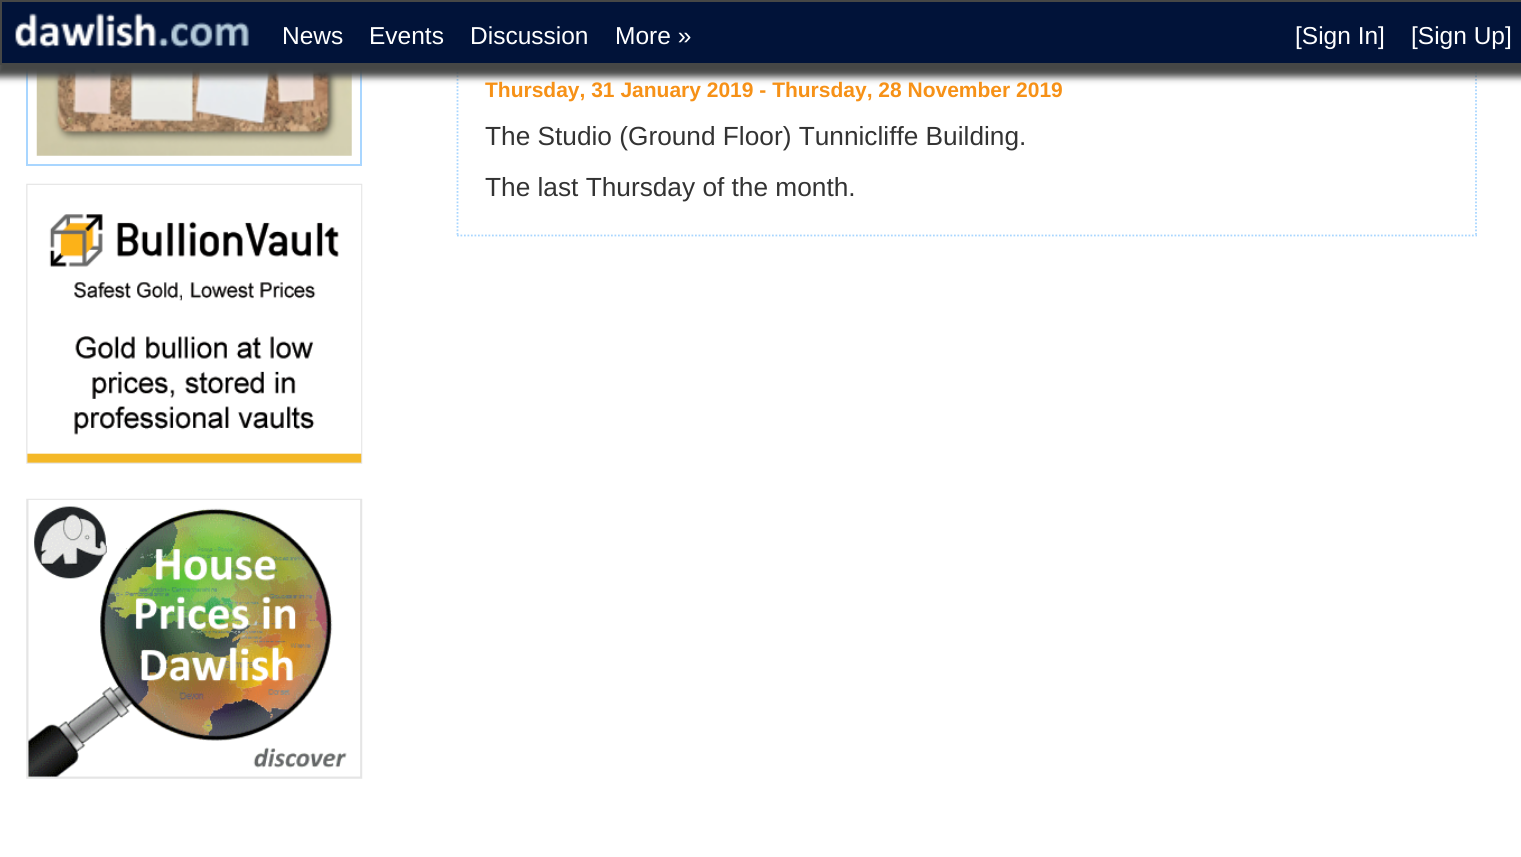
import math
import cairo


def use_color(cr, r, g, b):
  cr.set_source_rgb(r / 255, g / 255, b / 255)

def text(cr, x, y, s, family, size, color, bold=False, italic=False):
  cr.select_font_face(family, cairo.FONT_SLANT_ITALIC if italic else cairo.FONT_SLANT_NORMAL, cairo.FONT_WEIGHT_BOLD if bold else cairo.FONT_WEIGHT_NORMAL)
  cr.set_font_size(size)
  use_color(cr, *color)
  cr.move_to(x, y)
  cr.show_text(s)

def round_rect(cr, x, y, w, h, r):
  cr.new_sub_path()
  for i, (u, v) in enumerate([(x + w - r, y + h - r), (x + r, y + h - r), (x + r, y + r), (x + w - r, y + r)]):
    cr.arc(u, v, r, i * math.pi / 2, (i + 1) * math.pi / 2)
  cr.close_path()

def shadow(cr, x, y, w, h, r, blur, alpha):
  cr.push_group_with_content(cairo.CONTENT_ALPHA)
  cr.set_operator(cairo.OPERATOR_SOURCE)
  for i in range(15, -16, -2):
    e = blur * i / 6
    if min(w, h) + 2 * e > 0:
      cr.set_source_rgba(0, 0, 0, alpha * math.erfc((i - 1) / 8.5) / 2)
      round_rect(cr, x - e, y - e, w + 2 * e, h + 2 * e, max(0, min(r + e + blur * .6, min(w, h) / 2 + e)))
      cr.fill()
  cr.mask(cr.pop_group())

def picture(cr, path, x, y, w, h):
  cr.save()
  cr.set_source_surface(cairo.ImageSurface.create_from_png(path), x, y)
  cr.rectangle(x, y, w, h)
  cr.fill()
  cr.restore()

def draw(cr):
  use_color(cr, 255, 255, 255)
  cr.paint()
  cr.rectangle(27, -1, 334, 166)
  use_color(cr, 169, 214, 255)
  cr.stroke()
  picture(cr, "img_02.png", 36, 68, 316, 88)
  cr.new_path()
  cr.move_to(1476, -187)
  cr.line_to(1476, 236)
  cr.set_line_width(1.8)
  cr.set_dash([1.75, 1.75])
  cr.stroke()
  cr.new_path()
  cr.move_to(457, 235.5)
  cr.line_to(1477, 235.5)
  cr.stroke()
  cr.new_path()
  cr.move_to(457.5, -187)
  cr.line_to(457.5, 236)
  cr.stroke()
  use_color(cr, 70, 71, 70)
  shadow(cr, -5, -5, 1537, 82, 0, 3.5, 1)
  use_color(cr, 1, 19, 57)
  cr.rectangle(1, 1, 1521, 63)
  cr.fill_preserve()
  use_color(cr, 70, 71, 70)
  cr.set_line_width(2)
  cr.set_dash([])
  cr.stroke()
  picture(cr, "img_01.png", 15, 13, 234, 35)
  picture(cr, "img_03.png", 26, 183, 337, 281)
  picture(cr, "img_04.png", 26, 498, 337, 281)
  text(cr, 282, 44, "News", "Liberation Sans", 24.5, (255, 255, 255))
  text(cr, 369, 44, "Events", "Liberation Sans", 24.5, (255, 255, 255))
  text(cr, 470, 44, "Discussion", "Liberation Sans", 24.5, (255, 255, 255))
  text(cr, 615, 44, "More »", "Liberation Sans", 24.5, (255, 255, 255))
  text(cr, 1295, 44, "[Sign In]", "Liberation Sans", 24.5, (255, 255, 255))
  text(cr, 1411, 44, "[Sign Up]", "Liberation Sans", 24.5, (255, 255, 255))
  text(cr, 485, 97, "Thursday, 31 January 2019 - Thursday, 28 November 2019", "Liberation Sans", 21, (246, 145, 23), bold=True)
  text(cr, 485, 145, "The Studio (Ground Floor) Tunnicliffe Building.", "Liberation Sans", 26.25, (51, 51, 51))
  text(cr, 485, 196, "The last Thursday of the month.", "Liberation Sans", 26.25, (51, 51, 51))


surface = cairo.ImageSurface(cairo.FORMAT_RGB24, 1521, 857)
cr = cairo.Context(surface)
options = cairo.FontOptions()
options.set_hint_metrics(cairo.HINT_METRICS_OFF)
options.set_hint_style(cairo.HINT_STYLE_NONE)
cr.set_font_options(options)
cr.set_miter_limit(4)
draw(cr)
surface.write_to_png("out.png")
